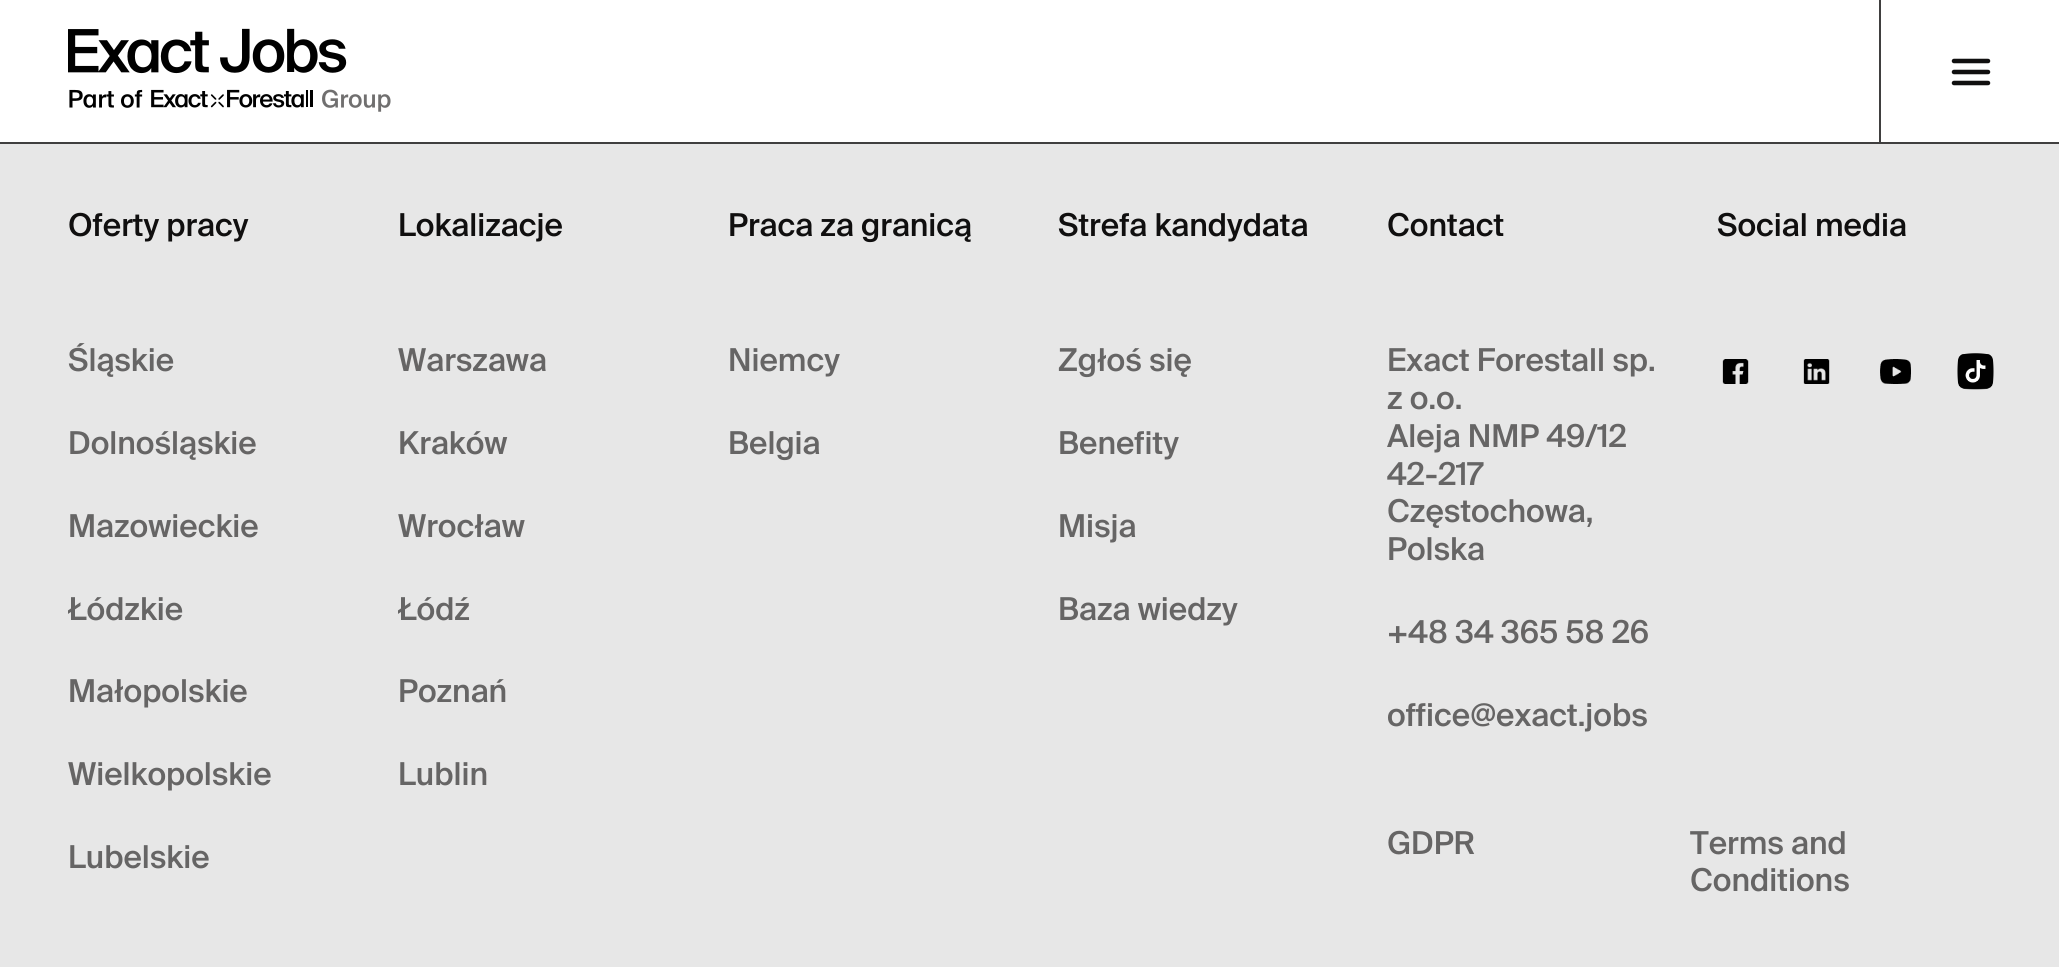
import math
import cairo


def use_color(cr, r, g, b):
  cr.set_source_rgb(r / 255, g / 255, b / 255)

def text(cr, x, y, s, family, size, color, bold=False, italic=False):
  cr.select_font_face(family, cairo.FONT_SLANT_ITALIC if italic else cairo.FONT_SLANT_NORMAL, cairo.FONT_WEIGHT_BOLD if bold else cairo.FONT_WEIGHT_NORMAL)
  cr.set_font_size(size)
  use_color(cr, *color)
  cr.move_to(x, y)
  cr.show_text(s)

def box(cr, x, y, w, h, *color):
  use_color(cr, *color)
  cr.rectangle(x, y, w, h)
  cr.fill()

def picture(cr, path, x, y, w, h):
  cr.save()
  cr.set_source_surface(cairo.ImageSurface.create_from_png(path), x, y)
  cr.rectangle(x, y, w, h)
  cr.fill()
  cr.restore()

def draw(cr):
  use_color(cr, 231, 231, 231)
  cr.paint()
  box(cr, 0, 0, 2059, 142, 255, 255, 255)
  box(cr, 0, 142, 2059, 2, 64, 63, 63)
  picture(cr, "img_01.png", 68, 28, 323, 84)
  box(cr, 1879, 0, 2, 142, 64, 63, 63)
  cr.new_path()
  cr.move_to(1954, 72)
  cr.line_to(1988, 72)
  cr.move_to(1954, 61)
  cr.line_to(1988, 61)
  cr.move_to(1954, 83)
  cr.line_to(1988, 83)
  use_color(cr, 16, 15, 15)
  cr.set_line_width(4.5)
  cr.set_line_cap(cairo.LINE_CAP_ROUND)
  cr.set_line_join(cairo.LINE_JOIN_ROUND)
  cr.stroke()
  picture(cr, "img_02.png", 1722, 359, 27, 25)
  picture(cr, "img_03.png", 1803, 359, 27, 25)
  picture(cr, "img_04.png", 1880, 359, 31, 25)
  picture(cr, "img_05.png", 1957, 353, 37, 37)
  text(cr, 68, 236, "Oferty pracy", "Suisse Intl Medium", 31.5, (16, 15, 15))
  text(cr, 68, 371, "Śląskie", "Suisse Intl Medium", 31.5, (102, 101, 101))
  text(cr, 68, 454, "Dolnośląskie", "Suisse Intl Medium", 31.5, (102, 101, 101))
  text(cr, 68, 537, "Mazowieckie", "Suisse Intl Medium", 31.5, (102, 101, 101))
  text(cr, 68, 620, "Łódzkie", "Suisse Intl Medium", 31.5, (102, 101, 101))
  text(cr, 68, 702, "Małopolskie", "Suisse Intl Medium", 31.5, (102, 101, 101))
  text(cr, 68, 785, "Wielkopolskie", "Suisse Intl Medium", 31.5, (102, 101, 101))
  text(cr, 68, 868, "Lubelskie", "Suisse Intl Medium", 31.5, (102, 101, 101))
  text(cr, 398, 236, "Lokalizacje", "Suisse Intl Medium", 31.5, (16, 15, 15))
  text(cr, 398, 371, "Warszawa", "Suisse Intl Medium", 31.5, (102, 101, 101))
  text(cr, 398, 454, "Kraków", "Suisse Intl Medium", 31.5, (102, 101, 101))
  text(cr, 398, 537, "Wrocław", "Suisse Intl Medium", 31.5, (102, 101, 101))
  text(cr, 398, 620, "Łódź", "Suisse Intl Medium", 31.5, (102, 101, 101))
  text(cr, 398, 702, "Poznań", "Suisse Intl Medium", 31.5, (102, 101, 101))
  text(cr, 398, 785, "Lublin", "Suisse Intl Medium", 31.5, (102, 101, 101))
  text(cr, 728, 236, "Praca za granicą", "Suisse Intl Medium", 31.5, (16, 15, 15))
  text(cr, 728, 371, "Niemcy", "Suisse Intl Medium", 31.5, (102, 101, 101))
  text(cr, 728, 454, "Belgia", "Suisse Intl Medium", 31.5, (102, 101, 101))
  text(cr, 1058, 236, "Strefa kandydata", "Suisse Intl Medium", 31.5, (16, 15, 15))
  text(cr, 1058, 371, "Zgłoś się", "Suisse Intl Medium", 31.5, (102, 101, 101))
  text(cr, 1058, 454, "Benefity", "Suisse Intl Medium", 31.5, (102, 101, 101))
  text(cr, 1058, 537, "Misja", "Suisse Intl Medium", 31.5, (102, 101, 101))
  text(cr, 1058, 620, "Baza wiedzy", "Suisse Intl Medium", 31.5, (102, 101, 101))
  text(cr, 1387, 236, "Contact", "Suisse Intl Medium", 31.5, (16, 15, 15))
  text(cr, 1387, 371, "Exact Forestall sp.", "Suisse Intl Medium", 31.5, (102, 101, 101))
  text(cr, 1387, 409, "z o.o.", "Suisse Intl Medium", 31.5, (102, 101, 101))
  text(cr, 1387, 447, "Aleja NMP 49/12", "Suisse Intl Medium", 31.5, (102, 101, 101))
  text(cr, 1387, 485, "42-217", "Suisse Intl Medium", 31.5, (102, 101, 101))
  text(cr, 1387, 522, "Częstochowa,", "Suisse Intl Medium", 31.5, (102, 101, 101))
  text(cr, 1387, 560, "Polska", "Suisse Intl Medium", 31.5, (102, 101, 101))
  text(cr, 1387, 643, "+48 34 365 58 26", "Suisse Intl Medium", 31.5, (102, 101, 101))
  text(cr, 1387, 726, "office@exact.jobs", "Suisse Intl Medium", 31.5, (102, 101, 101))
  text(cr, 1717, 236, "Social media", "Suisse Intl Medium", 31.5, (16, 15, 15))
  text(cr, 1387, 854, "GDPR", "Suisse Intl Medium", 31.5, (102, 101, 101))
  text(cr, 1690, 854, "Terms and", "Suisse Intl Medium", 31.5, (102, 101, 101))
  text(cr, 1690, 891, "Conditions", "Suisse Intl Medium", 31.5, (102, 101, 101))


surface = cairo.ImageSurface(cairo.FORMAT_RGB24, 2059, 967)
cr = cairo.Context(surface)
options = cairo.FontOptions()
options.set_hint_metrics(cairo.HINT_METRICS_OFF)
options.set_hint_style(cairo.HINT_STYLE_NONE)
cr.set_font_options(options)
cr.set_miter_limit(4)
draw(cr)
surface.write_to_png("out.png")
